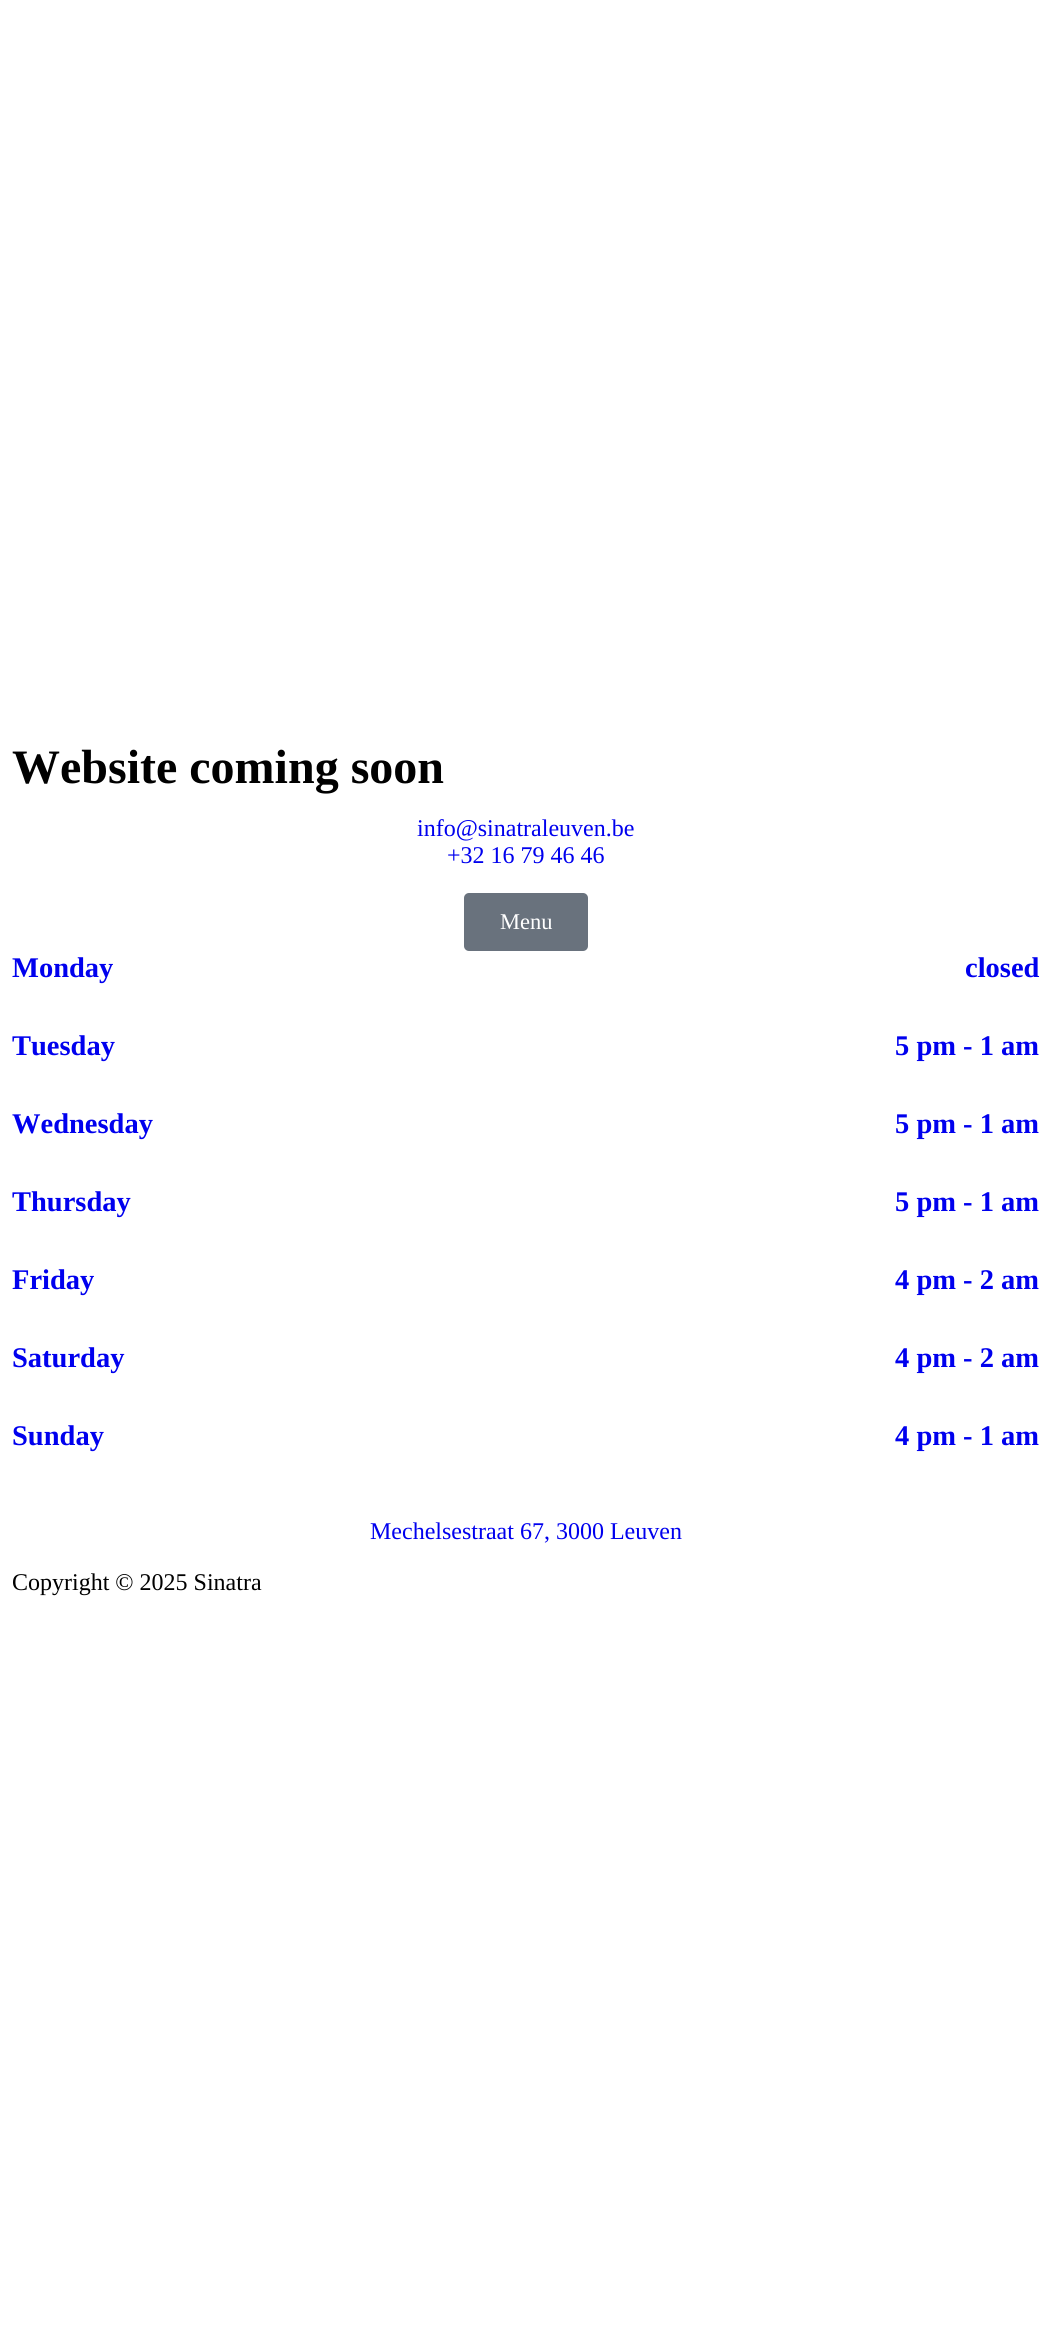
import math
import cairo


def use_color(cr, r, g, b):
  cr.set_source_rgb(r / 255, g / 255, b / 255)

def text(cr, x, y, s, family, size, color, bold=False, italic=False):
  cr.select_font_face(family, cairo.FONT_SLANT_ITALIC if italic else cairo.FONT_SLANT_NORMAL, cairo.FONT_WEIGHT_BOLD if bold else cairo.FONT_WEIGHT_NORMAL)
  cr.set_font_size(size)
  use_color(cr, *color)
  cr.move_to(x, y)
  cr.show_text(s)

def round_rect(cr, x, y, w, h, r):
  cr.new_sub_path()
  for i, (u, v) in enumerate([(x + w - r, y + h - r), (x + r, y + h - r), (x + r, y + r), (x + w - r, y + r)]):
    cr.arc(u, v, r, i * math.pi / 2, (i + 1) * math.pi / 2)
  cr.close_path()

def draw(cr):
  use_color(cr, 255, 255, 255)
  cr.paint()
  use_color(cr, 105, 114, 125)
  round_rect(cr, 464, 893, 124, 58, 5)
  cr.fill()
  text(cr, 12, 783, "Website coming soon", "Liberation Serif", 48, (0, 0, 0), bold=True)
  text(cr, 417, 836, "info@sinatraleuven.be", "Liberation Serif", 24, (0, 0, 238))
  text(cr, 447, 863, "+32 16 79 46 46", "Liberation Serif", 24, (0, 0, 238))
  text(cr, 500, 929, "Menu", "Liberation Serif", 22.5, (255, 255, 255))
  text(cr, 12, 977, "Monday", "Liberation Serif", 28.5, (0, 0, 238), bold=True)
  text(cr, 965, 977, "closed", "Liberation Serif", 28.5, (0, 0, 238), bold=True)
  text(cr, 12, 1055, "Tuesday", "Liberation Serif", 28.5, (0, 0, 238), bold=True)
  text(cr, 895, 1055, "5 pm - 1 am", "Liberation Serif", 28.5, (0, 0, 238), bold=True)
  text(cr, 12, 1133, "Wednesday", "Liberation Serif", 28.5, (0, 0, 238), bold=True)
  text(cr, 895, 1133, "5 pm - 1 am", "Liberation Serif", 28.5, (0, 0, 238), bold=True)
  text(cr, 12, 1211, "Thursday", "Liberation Serif", 28.5, (0, 0, 238), bold=True)
  text(cr, 895, 1211, "5 pm - 1 am", "Liberation Serif", 28.5, (0, 0, 238), bold=True)
  text(cr, 12, 1289, "Friday", "Liberation Serif", 28.5, (0, 0, 238), bold=True)
  text(cr, 895, 1289, "4 pm - 2 am", "Liberation Serif", 28.5, (0, 0, 238), bold=True)
  text(cr, 12, 1367, "Saturday", "Liberation Serif", 28.5, (0, 0, 238), bold=True)
  text(cr, 895, 1367, "4 pm - 2 am", "Liberation Serif", 28.5, (0, 0, 238), bold=True)
  text(cr, 12, 1445, "Sunday", "Liberation Serif", 28.5, (0, 0, 238), bold=True)
  text(cr, 895, 1445, "4 pm - 1 am", "Liberation Serif", 28.5, (0, 0, 238), bold=True)
  text(cr, 370, 1539, "Mechelsestraat 67, 3000 Leuven", "Liberation Serif", 24, (0, 0, 238))
  text(cr, 12, 1590, "Copyright © 2025 Sinatra", "Liberation Serif", 24, (0, 0, 0))


surface = cairo.ImageSurface(cairo.FORMAT_RGB24, 1051, 2347)
cr = cairo.Context(surface)
options = cairo.FontOptions()
options.set_hint_metrics(cairo.HINT_METRICS_OFF)
options.set_hint_style(cairo.HINT_STYLE_NONE)
cr.set_font_options(options)
cr.set_miter_limit(4)
draw(cr)
surface.write_to_png("out.png")
